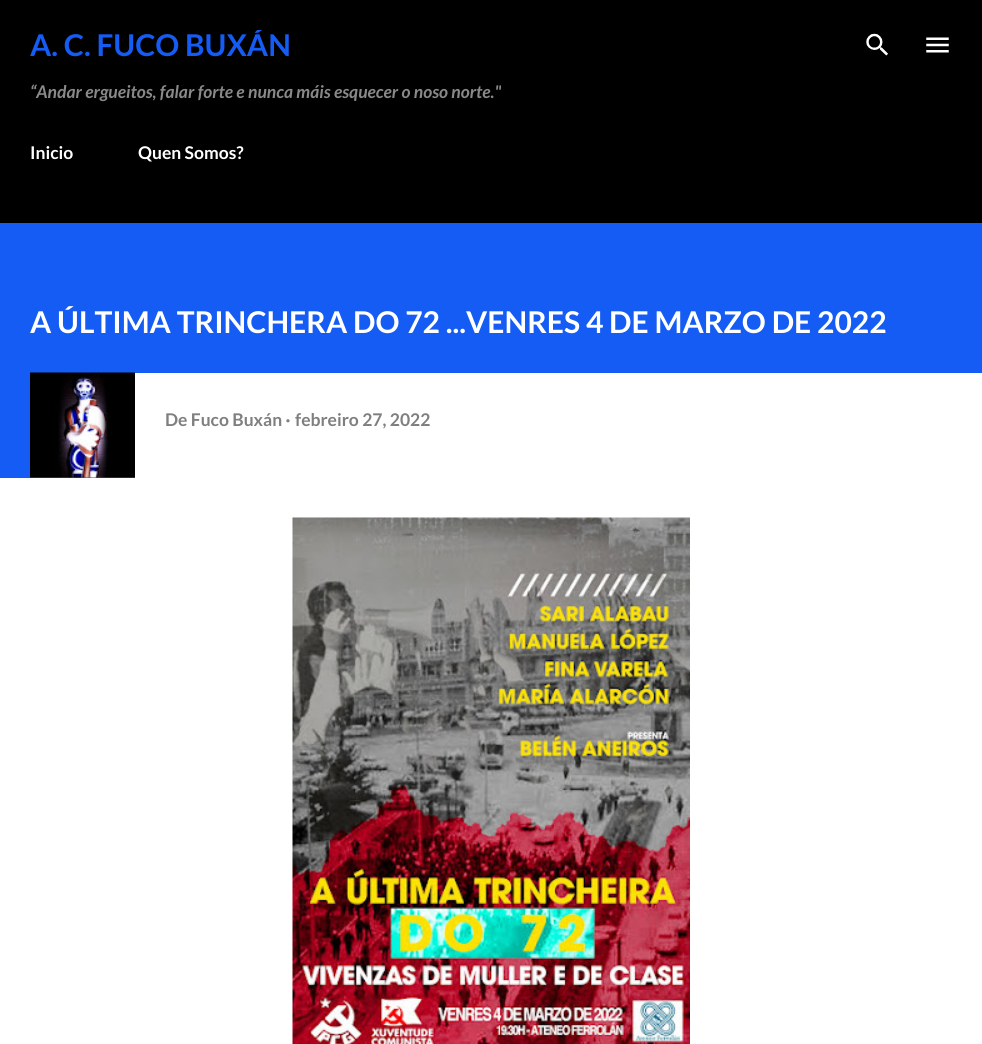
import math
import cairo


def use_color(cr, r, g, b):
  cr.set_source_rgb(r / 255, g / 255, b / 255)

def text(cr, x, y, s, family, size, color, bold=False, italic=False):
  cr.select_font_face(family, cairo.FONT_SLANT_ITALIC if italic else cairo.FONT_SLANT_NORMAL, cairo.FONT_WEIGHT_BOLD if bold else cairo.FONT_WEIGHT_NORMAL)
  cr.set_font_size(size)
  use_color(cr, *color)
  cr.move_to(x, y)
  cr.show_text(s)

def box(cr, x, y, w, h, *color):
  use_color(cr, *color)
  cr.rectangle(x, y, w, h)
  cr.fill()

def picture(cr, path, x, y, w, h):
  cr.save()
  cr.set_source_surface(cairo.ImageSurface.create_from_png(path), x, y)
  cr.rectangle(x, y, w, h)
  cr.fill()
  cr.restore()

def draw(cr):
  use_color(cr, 255, 255, 255)
  cr.paint()
  box(cr, 0, 0, 982, 223, 0, 0, 0)
  picture(cr, "img_01.png", 866, 33, 22, 23)
  picture(cr, "img_02.png", 926, 37, 23, 16)
  box(cr, 0, 223, 982, 150, 20, 92, 244)
  box(cr, 0, 373, 135, 105, 20, 92, 244)
  picture(cr, "img_03.png", 30, 372, 105, 106)
  picture(cr, "img_04.png", 292, 517, 398, 527)
  cr.save()
  cr.rectangle(30, 30, 863, 93)
  cr.clip()
  text(cr, 30, 56, "A. C. FUCO BUXÁN", "Lato", 30, (20, 92, 244), bold=True)
  cr.restore()
  text(cr, 30, 98, "“Andar ergueitos, falar forte e nunca máis esquecer o noso norte.\"", "Lato", 17.5, (137, 137, 137), bold=True, italic=True)
  text(cr, 30, 159, "Inicio", "Lato", 17.5, (255, 255, 255), bold=True)
  text(cr, 138, 159, "Quen Somos?", "Lato", 17.5, (255, 255, 255), bold=True)
  text(cr, 30, 333, "A ÚLTIMA TRINCHERA DO 72 ...VENRES 4 DE MARZO DE 2022", "Lato", 30, (255, 255, 255), bold=True)
  text(cr, 165, 426, "De Fuco Buxán ·", "Lato", 17.5, (127, 127, 127), bold=True)
  text(cr, 295, 426, "febreiro 27, 2022", "Lato", 17.5, (127, 127, 127), bold=True)


surface = cairo.ImageSurface(cairo.FORMAT_RGB24, 982, 1044)
cr = cairo.Context(surface)
options = cairo.FontOptions()
options.set_hint_metrics(cairo.HINT_METRICS_OFF)
options.set_hint_style(cairo.HINT_STYLE_NONE)
cr.set_font_options(options)
cr.set_miter_limit(4)
draw(cr)
surface.write_to_png("out.png")
